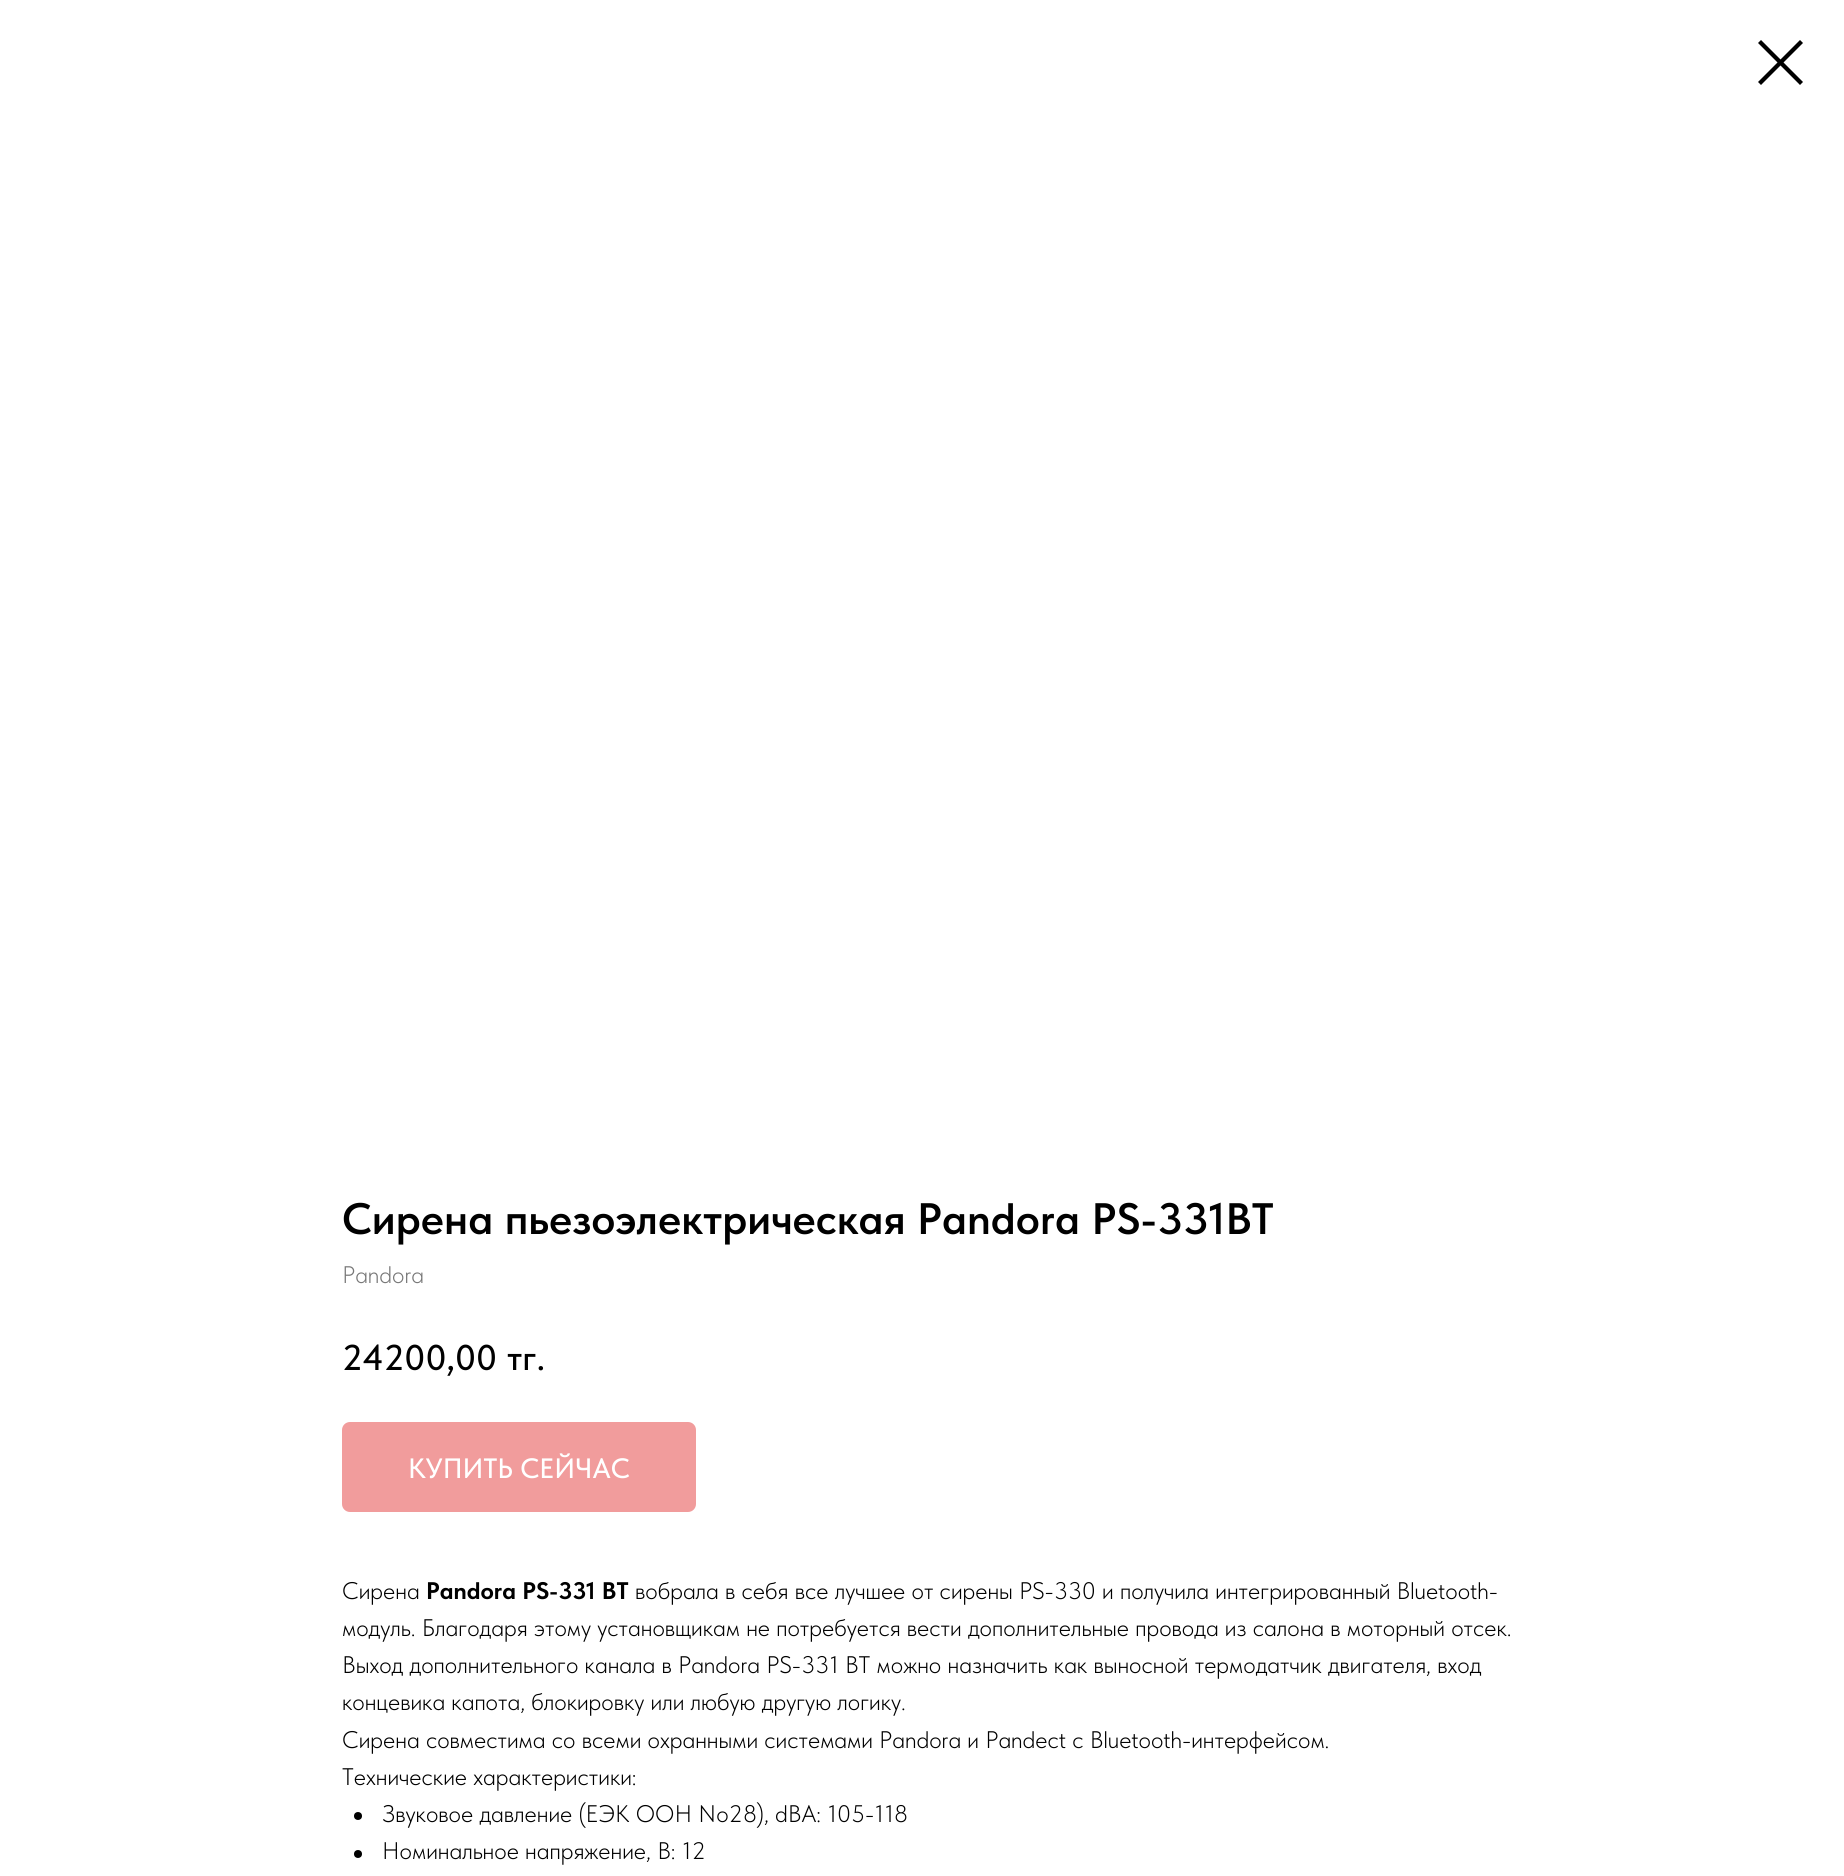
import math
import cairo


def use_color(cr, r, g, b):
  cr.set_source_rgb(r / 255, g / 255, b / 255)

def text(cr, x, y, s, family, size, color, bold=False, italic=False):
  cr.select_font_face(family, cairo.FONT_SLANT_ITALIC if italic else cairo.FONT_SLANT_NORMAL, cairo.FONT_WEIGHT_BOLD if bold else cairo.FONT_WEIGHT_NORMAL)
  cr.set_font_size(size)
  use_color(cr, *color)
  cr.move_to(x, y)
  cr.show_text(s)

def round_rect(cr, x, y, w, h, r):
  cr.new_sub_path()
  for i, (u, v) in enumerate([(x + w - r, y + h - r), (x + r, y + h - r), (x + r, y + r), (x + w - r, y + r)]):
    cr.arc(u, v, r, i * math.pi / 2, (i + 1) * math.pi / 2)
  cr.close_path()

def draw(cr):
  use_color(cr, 255, 255, 255)
  cr.paint()
  use_color(cr, 0, 0, 0)
  cr.set_fill_rule(cairo.FILL_RULE_EVEN_ODD)
  cr.new_path()
  cr.move_to(1758, 43)
  cr.line_to(1761, 40)
  cr.line_to(1803, 82)
  cr.line_to(1800, 85)
  cr.close_path()
  cr.fill()
  cr.new_path()
  cr.move_to(1800, 40)
  cr.line_to(1803, 43)
  cr.line_to(1761, 85)
  cr.line_to(1758, 82)
  cr.close_path()
  cr.fill()
  use_color(cr, 241, 156, 156)
  round_rect(cr, 343, 1423, 352, 88, 7)
  cr.fill_preserve()
  cr.stroke()
  use_color(cr, 0, 0, 0)
  cr.arc(358, 1816, 4, 0, 2 * math.pi)
  cr.fill()
  cr.arc(358, 1854, 4, 0, 2 * math.pi)
  cr.fill()
  text(cr, 342, 1234, "Сирена пьезоэлектрическая Pandora PS-331BT", "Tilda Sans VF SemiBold", 44, (0, 0, 0))
  text(cr, 342, 1283, "Pandora", "Tilda Sans VF Light", 24, (119, 119, 119))
  text(cr, 342, 1370, "24200,00", "Tilda Sans VF Medium", 36, (0, 0, 0))
  text(cr, 507, 1370, "тг.", "Tilda Sans VF Medium", 36, (0, 0, 0))
  text(cr, 408, 1478, "КУПИТЬ СЕЙЧАС", "Tilda Sans VF Medium", 28, (255, 255, 255))
  text(cr, 342, 1599, "Сирена", "Tilda Sans VF Light", 24, (0, 0, 0))
  text(cr, 426, 1599, "Pandora PS-331 BT", "Tilda Sans VF", 24, (0, 0, 0), bold=True)
  text(cr, 635, 1599, "вобрала в себя все лучшее от сирены PS-330 и получила интегрированный Bluetooth-", "Tilda Sans VF Light", 24, (0, 0, 0))
  text(cr, 342, 1636, "модуль. Благодаря этому установщикам не потребуется вести дополнительные провода из салона в моторный отсек.", "Tilda Sans VF Light", 24, (0, 0, 0))
  text(cr, 342, 1673, "Выход дополнительного канала в Pandora PS-331 BT можно назначить как выносной термодатчик двигателя, вход", "Tilda Sans VF Light", 24, (0, 0, 0))
  text(cr, 342, 1710, "концевика капота, блокировку или любую другую логику.", "Tilda Sans VF Light", 24, (0, 0, 0))
  text(cr, 342, 1748, "Сирена совместима со всеми охранными системами Pandora и Pandect с Bluetooth-интерфейсом.", "Tilda Sans VF Light", 24, (0, 0, 0))
  text(cr, 342, 1785, "Технические характеристики:", "Tilda Sans VF Light", 24, (0, 0, 0))
  text(cr, 382, 1822, "Звуковое давление (ЕЭК ООН No28), dBА: 105-118", "Tilda Sans VF Light", 24, (0, 0, 0))
  text(cr, 382, 1859, "Номинальное напряжение, B: 12", "Tilda Sans VF Light", 24, (0, 0, 0))


surface = cairo.ImageSurface(cairo.FORMAT_RGB24, 1844, 1876)
cr = cairo.Context(surface)
options = cairo.FontOptions()
options.set_hint_metrics(cairo.HINT_METRICS_OFF)
options.set_hint_style(cairo.HINT_STYLE_NONE)
cr.set_font_options(options)
cr.set_miter_limit(4)
draw(cr)
surface.write_to_png("out.png")
